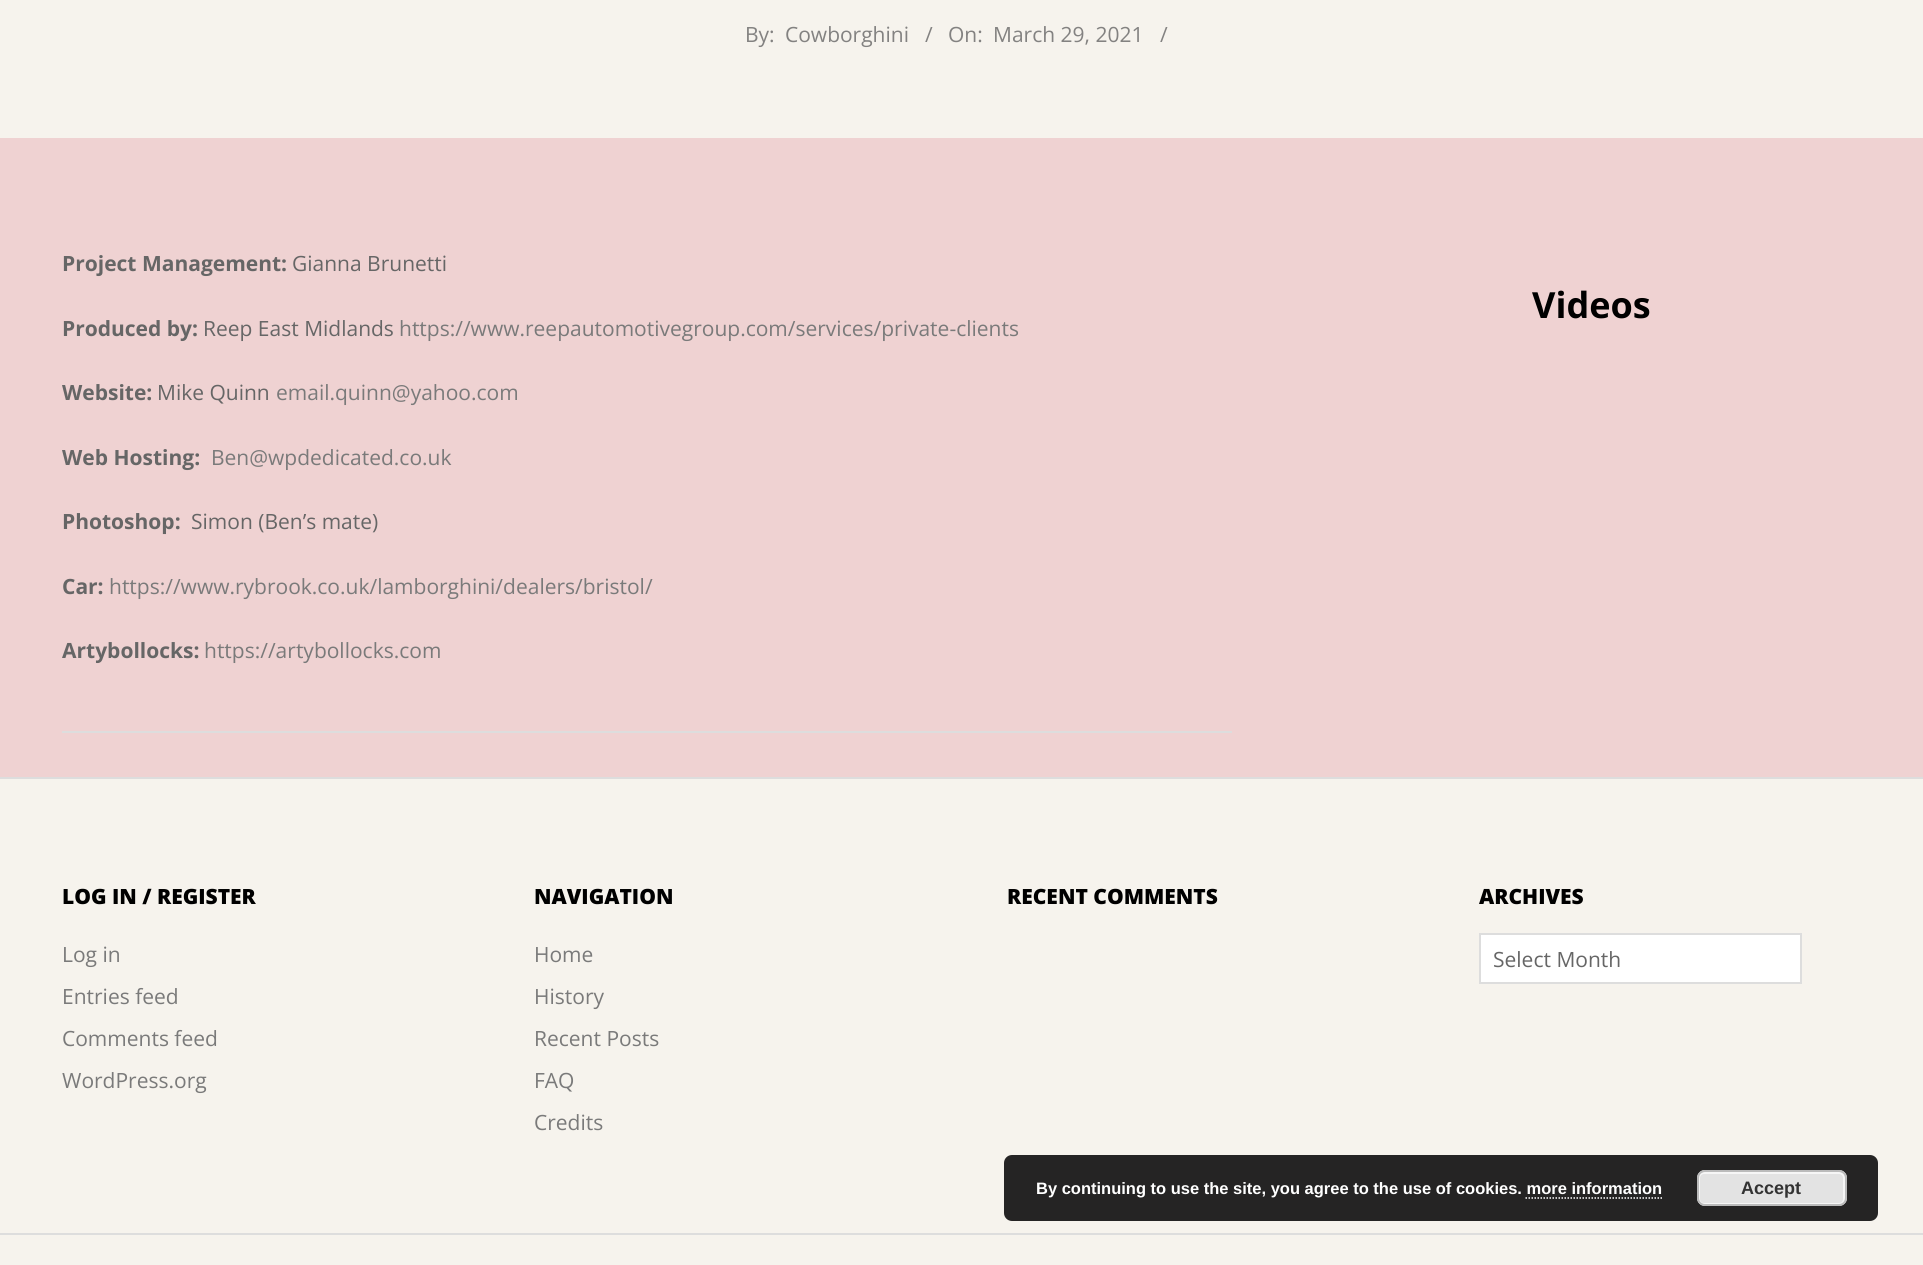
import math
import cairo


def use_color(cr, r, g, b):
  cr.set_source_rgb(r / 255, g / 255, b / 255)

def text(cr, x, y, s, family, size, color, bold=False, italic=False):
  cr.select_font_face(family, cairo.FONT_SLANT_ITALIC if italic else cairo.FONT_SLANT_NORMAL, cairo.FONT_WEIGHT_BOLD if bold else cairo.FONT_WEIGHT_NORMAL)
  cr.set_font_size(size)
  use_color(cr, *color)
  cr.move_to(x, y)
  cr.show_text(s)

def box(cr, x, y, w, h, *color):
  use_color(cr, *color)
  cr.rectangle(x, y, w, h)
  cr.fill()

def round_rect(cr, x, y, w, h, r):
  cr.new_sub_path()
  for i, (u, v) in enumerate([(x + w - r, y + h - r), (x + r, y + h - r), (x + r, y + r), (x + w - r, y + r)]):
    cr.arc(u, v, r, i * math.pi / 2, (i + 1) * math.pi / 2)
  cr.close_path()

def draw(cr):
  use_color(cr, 239, 210, 210)
  cr.paint()
  box(cr, 0, 0, 1923, 138, 246, 243, 237)
  box(cr, 62, 731, 1170, 2, 221, 221, 221)
  box(cr, 0, 779, 1923, 454, 246, 243, 237)
  box(cr, 0, 777, 1923, 2, 221, 221, 221)
  use_color(cr, 255, 255, 255)
  cr.rectangle(1480, 934, 321, 49)
  cr.fill_preserve()
  use_color(cr, 221, 221, 221)
  cr.stroke()
  box(cr, 0, 1235, 1923, 30, 246, 243, 237)
  box(cr, 0, 1233, 1923, 2, 221, 221, 221)
  use_color(cr, 37, 36, 36)
  round_rect(cr, 1004, 1155, 874, 66, 8)
  cr.fill()
  use_color(cr, 227, 227, 227)
  round_rect(cr, 1697, 1170, 150, 36, 8)
  cr.fill()
  round_rect(cr, 1699, 1173, 145, 31, 5)
  use_color(cr, 246, 246, 246)
  cr.stroke()
  round_rect(cr, 1698, 1171, 148, 34, 7)
  use_color(cr, 187, 187, 187)
  cr.stroke()
  cr.new_path()
  cr.move_to(1525.5, 1198)
  cr.line_to(1662, 1198)
  use_color(cr, 255, 255, 255)
  cr.set_line_width(1.5)
  cr.set_dash([1.5, 1.5])
  cr.stroke()
  text(cr, 745, 42, "By:", "Open Sans", 21, (131, 130, 129))
  text(cr, 785, 42, "Cowborghini", "Open Sans", 21, (131, 130, 129))
  text(cr, 925, 42, "/", "Open Sans", 21, (131, 130, 129))
  text(cr, 948, 42, "On:", "Open Sans", 21, (131, 130, 129))
  text(cr, 993, 42, "March 29, 2021", "Open Sans", 21, (131, 130, 129))
  text(cr, 1160, 42, "/", "Open Sans", 21, (131, 130, 129))
  text(cr, 62, 271, "Project Management:", "Open Sans", 21, (102, 102, 102), bold=True)
  text(cr, 292, 271, "Gianna Brunetti", "Open Sans", 21, (102, 102, 102))
  text(cr, 62, 336, "Produced by:", "Open Sans", 21, (102, 102, 102), bold=True)
  text(cr, 203, 336, "Reep East Midlands", "Open Sans", 21, (102, 102, 102))
  text(cr, 399, 336, "https://www.reepautomotivegroup.com/services/private-clients", "Open Sans", 21, (122, 122, 122))
  text(cr, 62, 400, "Website:", "Open Sans", 21, (102, 102, 102), bold=True)
  text(cr, 157, 400, "Mike Quinn", "Open Sans", 21, (102, 102, 102))
  text(cr, 276, 400, "email.quinn@yahoo.com", "Open Sans", 21, (122, 122, 122))
  text(cr, 62, 465, "Web Hosting:", "Open Sans", 21, (102, 102, 102), bold=True)
  text(cr, 211, 465, "Ben@wpdedicated.co.uk", "Open Sans", 21, (122, 122, 122))
  text(cr, 62, 529, "Photoshop:", "Open Sans", 21, (102, 102, 102), bold=True)
  text(cr, 191, 529, "Simon (Ben’s mate)", "Open Sans", 21, (102, 102, 102))
  text(cr, 62, 594, "Car:", "Open Sans", 21, (102, 102, 102), bold=True)
  text(cr, 109, 594, "https://www.rybrook.co.uk/lamborghini/dealers/bristol/", "Open Sans", 21, (122, 122, 122))
  text(cr, 62, 658, "Artybollocks:", "Open Sans", 21, (102, 102, 102), bold=True)
  text(cr, 204, 658, "https://artybollocks.com", "Open Sans", 21, (122, 122, 122))
  text(cr, 1532, 318, "Videos", "Open Sans", 36, (0, 0, 0), bold=True)
  text(cr, 62, 904, "LOG IN / REGISTER", "Open Sans ExtraBold", 21, (0, 0, 0))
  text(cr, 62, 962, "Log in", "Open Sans", 21, (122, 122, 122))
  text(cr, 62, 1004, "Entries feed", "Open Sans", 21, (122, 122, 122))
  text(cr, 62, 1046, "Comments feed", "Open Sans", 21, (122, 122, 122))
  text(cr, 62, 1088, "WordPress.org", "Open Sans", 21, (122, 122, 122))
  text(cr, 534, 904, "NAVIGATION", "Open Sans ExtraBold", 21, (0, 0, 0))
  text(cr, 534, 962, "Home", "Open Sans", 21, (122, 122, 122))
  text(cr, 534, 1004, "History", "Open Sans", 21, (122, 122, 122))
  text(cr, 534, 1046, "Recent Posts", "Open Sans", 21, (122, 122, 122))
  text(cr, 534, 1088, "FAQ", "Open Sans", 21, (122, 122, 122))
  text(cr, 534, 1130, "Credits", "Open Sans", 21, (122, 122, 122))
  text(cr, 1007, 904, "RECENT COMMENTS", "Open Sans ExtraBold", 21, (0, 0, 0))
  text(cr, 1479, 904, "ARCHIVES", "Open Sans ExtraBold", 21, (0, 0, 0))
  text(cr, 1493, 967, "Select Month", "Open Sans", 21, (102, 102, 102))
  text(cr, 1036, 1194, "By continuing to use the site, you agree to the use of cookies. more information", "Liberation Sans", 16.5, (255, 255, 255), bold=True)
  text(cr, 1741, 1194, "Accept", "Liberation Sans", 18, (51, 51, 51), bold=True)


surface = cairo.ImageSurface(cairo.FORMAT_RGB24, 1923, 1265)
cr = cairo.Context(surface)
options = cairo.FontOptions()
options.set_hint_metrics(cairo.HINT_METRICS_OFF)
options.set_hint_style(cairo.HINT_STYLE_NONE)
cr.set_font_options(options)
cr.set_miter_limit(4)
draw(cr)
surface.write_to_png("out.png")
